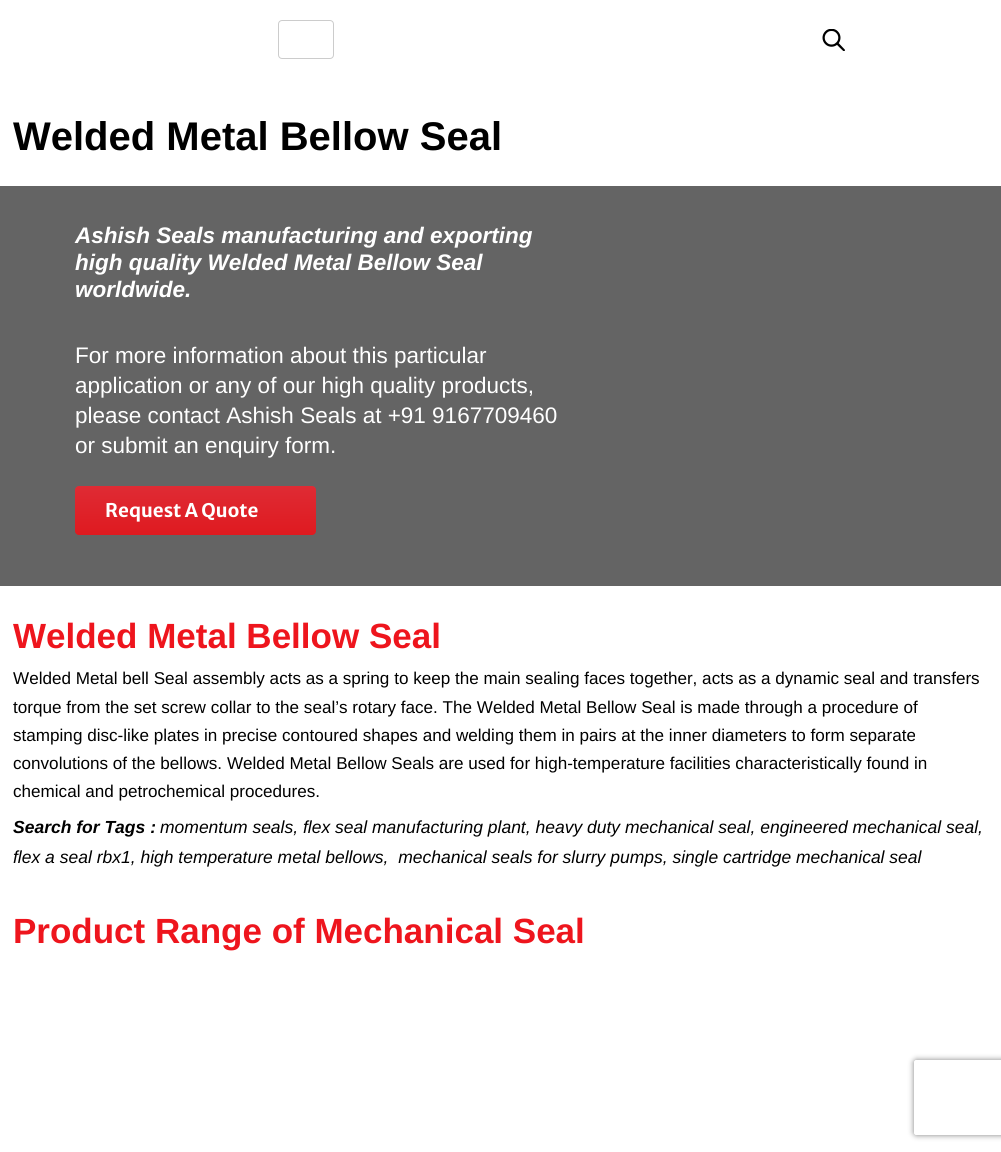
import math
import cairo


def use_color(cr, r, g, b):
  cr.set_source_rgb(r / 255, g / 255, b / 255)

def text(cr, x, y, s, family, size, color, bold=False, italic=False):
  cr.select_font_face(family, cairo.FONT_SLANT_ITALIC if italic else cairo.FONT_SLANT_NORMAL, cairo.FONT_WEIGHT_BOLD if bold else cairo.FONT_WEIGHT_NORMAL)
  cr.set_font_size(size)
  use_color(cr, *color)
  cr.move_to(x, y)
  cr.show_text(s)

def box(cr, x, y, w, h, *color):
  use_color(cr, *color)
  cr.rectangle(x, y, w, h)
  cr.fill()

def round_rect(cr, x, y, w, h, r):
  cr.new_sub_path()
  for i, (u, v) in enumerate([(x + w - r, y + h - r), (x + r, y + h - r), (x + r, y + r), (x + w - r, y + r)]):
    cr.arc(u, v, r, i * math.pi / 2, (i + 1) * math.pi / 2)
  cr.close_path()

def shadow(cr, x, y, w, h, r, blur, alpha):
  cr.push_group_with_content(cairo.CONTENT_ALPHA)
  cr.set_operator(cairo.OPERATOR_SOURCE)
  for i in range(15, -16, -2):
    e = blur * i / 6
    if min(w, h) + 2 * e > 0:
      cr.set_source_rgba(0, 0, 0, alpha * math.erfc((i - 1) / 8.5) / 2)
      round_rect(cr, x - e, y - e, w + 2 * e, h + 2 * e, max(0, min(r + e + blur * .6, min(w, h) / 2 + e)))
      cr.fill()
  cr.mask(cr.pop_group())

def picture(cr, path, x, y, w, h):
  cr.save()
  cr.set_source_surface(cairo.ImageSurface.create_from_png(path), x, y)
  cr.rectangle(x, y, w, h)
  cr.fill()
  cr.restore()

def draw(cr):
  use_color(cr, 255, 255, 255)
  cr.paint()
  round_rect(cr, 278.5, 20.5, 55, 38, 3.5)
  use_color(cr, 204, 204, 204)
  cr.set_line_width(1)
  cr.stroke()
  picture(cr, "img_01.png", 822, 29, 23, 22)
  box(cr, 0, 186, 1001, 400, 100, 100, 100)
  gradient = cairo.LinearGradient(196, 486, 196, 535)
  gradient.add_color_stop_rgba(0, 0.875, 0.169, 0.204, 1)
  gradient.add_color_stop_rgba(1, 0.875, 0.102, 0.125, 1)
  cr.set_source(gradient)
  round_rect(cr, 75, 486, 241, 49, 4)
  cr.fill()
  cr.save()
  cr.set_fill_rule(cairo.FILL_RULE_EVEN_ODD)
  cr.new_path()
  cr.move_to(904, 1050)
  cr.line_to(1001, 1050)
  cr.line_to(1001, 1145)
  cr.line_to(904, 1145)
  cr.close_path()
  cr.move_to(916.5, 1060)
  cr.line_to(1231.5, 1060)
  cr.curve_to(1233, 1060, 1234, 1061, 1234, 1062.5)
  cr.line_to(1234, 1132.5)
  cr.curve_to(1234, 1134, 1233, 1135, 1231.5, 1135)
  cr.line_to(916.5, 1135)
  cr.curve_to(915, 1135, 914, 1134, 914, 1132.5)
  cr.line_to(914, 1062.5)
  cr.curve_to(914, 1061, 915, 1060, 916.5, 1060)
  cr.close_path()
  cr.clip()
  use_color(cr, 128, 128, 128)
  shadow(cr, 914, 1060, 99, 75, 2.5, 3, 1)
  cr.restore()
  text(cr, 13, 150, "Welded Metal Bellow Seal", "Liberation Sans", 40, (0, 0, 0), bold=True)
  text(cr, 75, 243, "Ashish Seals manufacturing and exporting", "Liberation Sans", 22.5, (255, 255, 255), bold=True, italic=True)
  text(cr, 75, 270, "high quality Welded Metal Bellow Seal", "Liberation Sans", 22.5, (255, 255, 255), bold=True, italic=True)
  text(cr, 75, 297, "worldwide.", "Liberation Sans", 22.5, (255, 255, 255), bold=True, italic=True)
  text(cr, 75, 363, "For more information about this particular", "Liberation Sans", 22.5, (255, 255, 255))
  text(cr, 75, 393, "application or any of our high quality products,", "Liberation Sans", 22.5, (255, 255, 255))
  text(cr, 75, 423, "please contact Ashish Seals at +91 9167709460", "Liberation Sans", 22.5, (255, 255, 255))
  text(cr, 75, 453, "or submit an enquiry form.", "Liberation Sans", 22.5, (255, 255, 255))
  text(cr, 105, 517, "Request A Quote", "Merriweather Sans", 18.75, (255, 255, 255), bold=True)
  text(cr, 13, 648, "Welded Metal Bellow Seal", "Liberation Sans", 35, (238, 21, 29), bold=True)
  text(cr, 13, 684, "Welded Metal bell Seal assembly acts as a spring to keep the main sealing faces together, acts as a dynamic seal and transfers", "Liberation Sans", 17.1, (0, 0, 0))
  text(cr, 13, 713, "torque from the set screw collar to the seal’s rotary face. The Welded Metal Bellow Seal is made through a procedure of", "Liberation Sans", 17.1, (0, 0, 0))
  text(cr, 13, 741, "stamping disc-like plates in precise contoured shapes and welding them in pairs at the inner diameters to form separate", "Liberation Sans", 17.1, (0, 0, 0))
  text(cr, 13, 769, "convolutions of the bellows. Welded Metal Bellow Seals are used for high-temperature facilities characteristically found in", "Liberation Sans", 17.1, (0, 0, 0))
  text(cr, 13, 797, "chemical and petrochemical procedures.", "Liberation Sans", 17.1, (0, 0, 0))
  text(cr, 13, 833, "Search for Tags :", "Liberation Sans", 17.5, (0, 0, 0), bold=True, italic=True)
  text(cr, 160, 833, "momentum seals, flex seal manufacturing plant, heavy duty mechanical seal, engineered mechanical seal,", "Liberation Sans", 17.5, (0, 0, 0), italic=True)
  text(cr, 13, 863, "flex a seal rbx1, high temperature metal bellows,  mechanical seals for slurry pumps, single cartridge mechanical seal", "Liberation Sans", 17.5, (0, 0, 0), italic=True)
  text(cr, 13, 943, "Product Range of Mechanical Seal", "Liberation Sans", 35, (238, 21, 29), bold=True)


surface = cairo.ImageSurface(cairo.FORMAT_RGB24, 1001, 1152)
cr = cairo.Context(surface)
options = cairo.FontOptions()
options.set_hint_metrics(cairo.HINT_METRICS_OFF)
options.set_hint_style(cairo.HINT_STYLE_NONE)
cr.set_font_options(options)
cr.set_miter_limit(4)
draw(cr)
surface.write_to_png("out.png")
